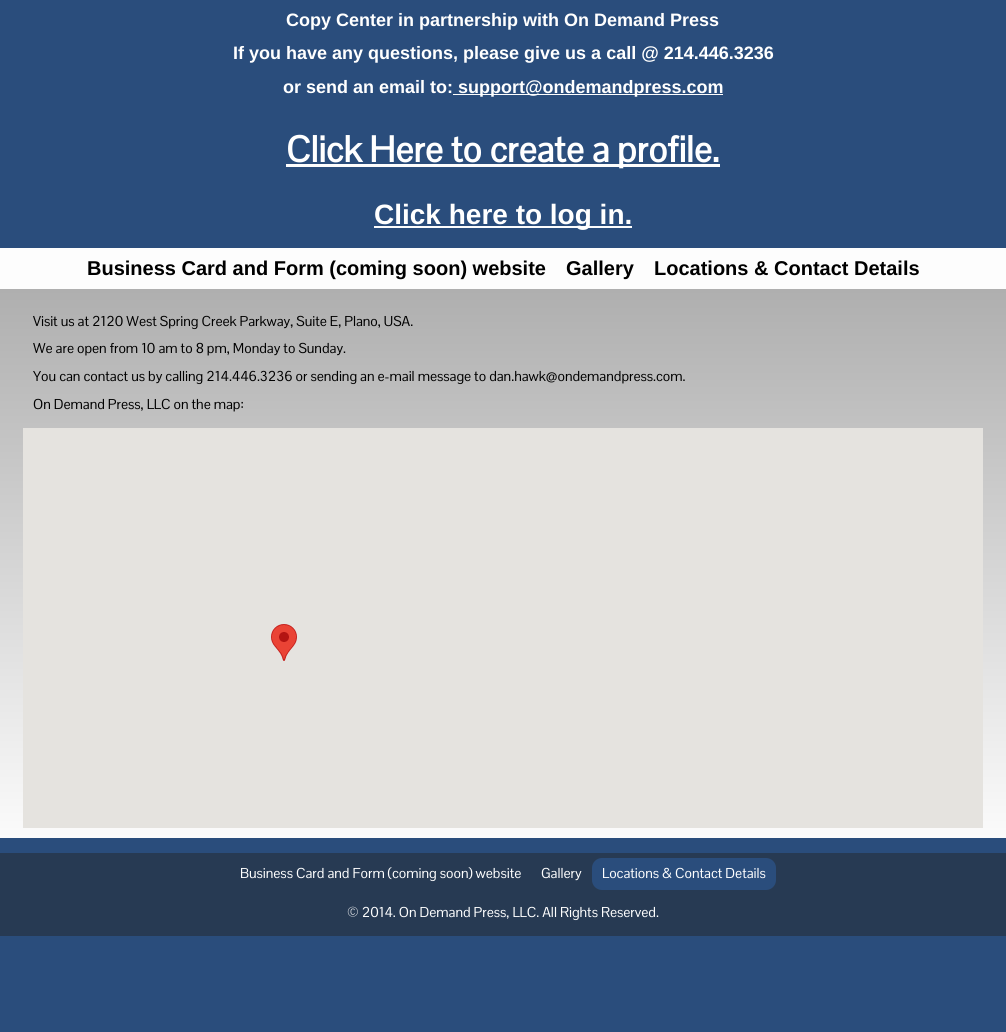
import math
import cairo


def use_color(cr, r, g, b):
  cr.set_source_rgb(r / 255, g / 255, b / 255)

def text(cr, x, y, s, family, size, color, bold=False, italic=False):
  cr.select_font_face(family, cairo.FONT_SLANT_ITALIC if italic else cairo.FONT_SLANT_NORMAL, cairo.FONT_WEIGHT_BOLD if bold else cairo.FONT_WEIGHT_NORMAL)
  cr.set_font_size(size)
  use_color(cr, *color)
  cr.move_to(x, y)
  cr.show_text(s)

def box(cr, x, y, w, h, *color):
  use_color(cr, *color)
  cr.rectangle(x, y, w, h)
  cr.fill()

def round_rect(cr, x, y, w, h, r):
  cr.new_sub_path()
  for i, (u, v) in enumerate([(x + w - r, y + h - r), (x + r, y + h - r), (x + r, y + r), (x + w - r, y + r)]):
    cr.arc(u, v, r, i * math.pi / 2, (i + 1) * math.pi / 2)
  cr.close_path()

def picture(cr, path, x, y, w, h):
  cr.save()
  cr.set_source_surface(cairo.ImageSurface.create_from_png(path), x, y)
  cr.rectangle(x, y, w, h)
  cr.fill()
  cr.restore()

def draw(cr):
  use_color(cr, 42, 77, 124)
  cr.paint()
  box(cr, 453, 94, 270, 1, 253, 253, 253)
  box(cr, 286, 164, 434, 3, 253, 253, 253)
  box(cr, 374, 226, 258, 2, 253, 253, 253)
  box(cr, 0, 248, 1006, 41, 253, 253, 253)
  gradient = cairo.LinearGradient(503, 289, 503, 838)
  gradient.add_color_stop_rgba(0, 0.686, 0.686, 0.686, 1)
  gradient.add_color_stop_rgba(1, 0.984, 0.984, 0.984, 1)
  cr.set_source(gradient)
  cr.rectangle(0, 289, 1006, 549)
  cr.fill()
  box(cr, 23, 428, 960, 400, 229, 227, 223)
  picture(cr, "img_01.png", 271, 624, 26, 37)
  box(cr, 0, 853, 1006, 83, 39, 58, 83)
  use_color(cr, 42, 77, 124)
  round_rect(cr, 592, 858, 184, 32, 10)
  cr.fill()
  text(cr, 286, 26, "Copy Center in partnership with On Demand Press", "Liberation Sans", 18, (255, 255, 255), bold=True)
  text(cr, 233, 59, "If you have any questions, please give us a call @ 214.446.3236", "Liberation Sans", 18, (255, 255, 255), bold=True)
  text(cr, 283, 93, "or send an email to:", "Liberation Sans", 18, (255, 255, 255), bold=True)
  text(cr, 458, 93, "support@ondemandpress.com", "Liberation Sans", 18, (255, 255, 255), bold=True)
  text(cr, 286, 162, "Click Here to create a profile.", "Pontano Sans", 36, (255, 255, 255), bold=True)
  text(cr, 374, 224, "Click here to log in.", "Liberation Sans", 28, (255, 255, 255), bold=True)
  text(cr, 87, 275, "Business Card and Form (coming soon) website", "Liberation Sans", 20, (0, 0, 0), bold=True)
  text(cr, 566, 275, "Gallery", "Liberation Sans", 20, (0, 0, 0), bold=True)
  text(cr, 654, 275, "Locations & Contact Details", "Liberation Sans", 20, (0, 0, 0), bold=True)
  text(cr, 33, 326, "Visit us at 2120 West Spring Creek Parkway, Suite E, Plano, USA.", "Pontano Sans", 14, (0, 0, 0))
  text(cr, 33, 353, "We are open from 10 am to 8 pm, Monday to Sunday.", "Pontano Sans", 14, (0, 0, 0))
  text(cr, 33, 381, "You can contact us by calling 214.446.3236 or sending an e-mail message to dan.hawk@ondemandpress.com.", "Pontano Sans", 14, (0, 0, 0))
  text(cr, 33, 409, "On Demand Press, LLC on the map:", "Pontano Sans", 14, (0, 0, 0))
  text(cr, 240, 878, "Business Card and Form (coming soon) website", "Pontano Sans", 14, (255, 255, 255))
  text(cr, 541, 878, "Gallery", "Pontano Sans", 14, (255, 255, 255))
  text(cr, 602, 878, "Locations & Contact Details", "Pontano Sans", 14, (255, 255, 255))
  text(cr, 347, 917, "© 2014. On Demand Press, LLC. All Rights Reserved.", "Pontano Sans", 14, (255, 255, 255))


surface = cairo.ImageSurface(cairo.FORMAT_RGB24, 1006, 1032)
cr = cairo.Context(surface)
options = cairo.FontOptions()
options.set_hint_metrics(cairo.HINT_METRICS_OFF)
options.set_hint_style(cairo.HINT_STYLE_NONE)
cr.set_font_options(options)
cr.set_miter_limit(4)
draw(cr)
surface.write_to_png("out.png")
